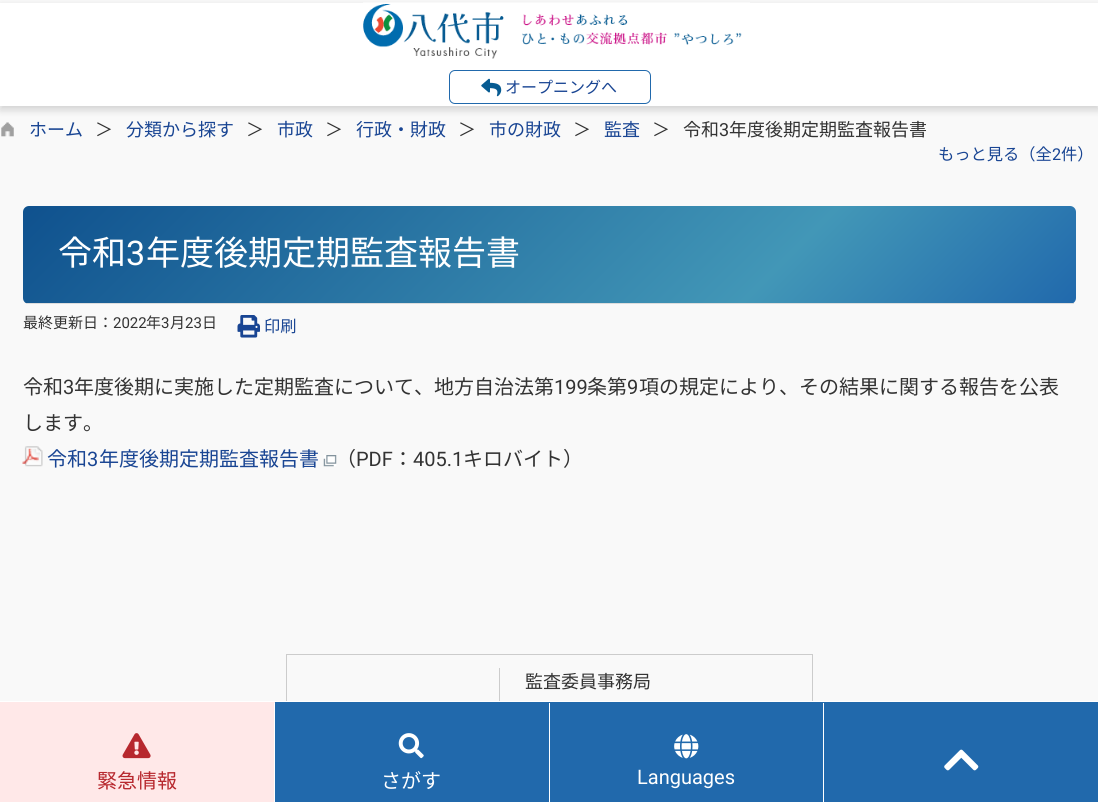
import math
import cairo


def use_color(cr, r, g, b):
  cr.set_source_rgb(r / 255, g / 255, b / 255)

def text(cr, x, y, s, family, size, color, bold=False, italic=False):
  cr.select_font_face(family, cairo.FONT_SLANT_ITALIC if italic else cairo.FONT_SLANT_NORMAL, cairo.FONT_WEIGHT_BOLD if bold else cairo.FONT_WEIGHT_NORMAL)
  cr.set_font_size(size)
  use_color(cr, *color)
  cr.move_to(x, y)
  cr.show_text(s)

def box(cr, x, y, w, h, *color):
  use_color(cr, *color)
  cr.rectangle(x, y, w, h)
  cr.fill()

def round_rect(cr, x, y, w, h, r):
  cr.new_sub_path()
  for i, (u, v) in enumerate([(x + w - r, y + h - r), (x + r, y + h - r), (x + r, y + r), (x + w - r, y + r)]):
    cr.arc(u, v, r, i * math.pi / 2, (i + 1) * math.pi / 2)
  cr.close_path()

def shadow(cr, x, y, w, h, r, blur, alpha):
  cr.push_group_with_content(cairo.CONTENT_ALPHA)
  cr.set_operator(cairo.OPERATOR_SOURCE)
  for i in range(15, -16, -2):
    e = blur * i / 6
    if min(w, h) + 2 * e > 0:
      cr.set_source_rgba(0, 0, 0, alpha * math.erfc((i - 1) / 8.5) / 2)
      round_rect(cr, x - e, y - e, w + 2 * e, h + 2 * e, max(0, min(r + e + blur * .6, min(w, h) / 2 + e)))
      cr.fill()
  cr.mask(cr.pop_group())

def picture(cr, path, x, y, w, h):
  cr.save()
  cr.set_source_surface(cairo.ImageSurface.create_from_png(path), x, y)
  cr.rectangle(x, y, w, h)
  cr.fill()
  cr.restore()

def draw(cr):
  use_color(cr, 249, 249, 249)
  cr.paint()
  use_color(cr, 0, 0, 0)
  shadow(cr, 0, 6, 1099, 104, 0, 4, 0.16)
  box(cr, 0, 3, 1098, 103, 255, 255, 255)
  picture(cr, "img_01.png", 363, 2, 387, 57)
  round_rect(cr, 449.5, 70.5, 201, 33, 5.5)
  use_color(cr, 33, 105, 172)
  cr.set_line_width(1)
  cr.stroke()
  picture(cr, "img_02.png", 481, 78, 21, 19)
  picture(cr, "img_03.png", 1, 122, 13, 15)
  cr.save()
  round_rect(cr, 23, 206, 1053, 98, 6)
  cr.clip()
  gradient = cairo.LinearGradient(837, 542, 262, -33)
  gradient.add_color_stop_rgba(0, 0.129, 0.412, 0.675, 1)
  gradient.add_color_stop_rgba(0.29, 0.259, 0.592, 0.718, 1)
  gradient.add_color_stop_rgba(1, 0.059, 0.318, 0.557, 1)
  cr.set_source(gradient)
  cr.new_path()
  cr.move_to(29, 206)
  cr.line_to(1070, 206)
  cr.curve_to(1073.5, 206, 1076, 208.5, 1076, 212)
  cr.line_to(1076, 303)
  cr.line_to(23, 303)
  cr.line_to(23, 212)
  cr.curve_to(23, 208.5, 25.5, 206, 29, 206)
  cr.close_path()
  cr.fill()
  cr.restore()
  box(cr, 26, 303, 1048, 1, 221, 221, 221)
  picture(cr, "img_04.png", 237, 315, 23, 23)
  picture(cr, "img_05.png", 22, 446, 21, 21)
  picture(cr, "img_06.png", 323, 455, 14, 12)
  cr.rectangle(286.5, 654.5, 526, 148)
  use_color(cr, 204, 204, 204)
  cr.stroke()
  box(cr, 499, 668, 1, 33, 204, 204, 204)
  box(cr, 0, 702, 275, 100, 255, 232, 232)
  box(cr, 275, 702, 823, 100, 33, 105, 172)
  box(cr, 0, 701, 1098, 1, 255, 255, 255)
  picture(cr, "img_07.png", 944, 749, 35, 22)
  box(cr, 274, 703, 1, 99, 255, 255, 255)
  picture(cr, "img_08.png", 122, 733, 29, 26)
  box(cr, 549, 703, 1, 99, 255, 255, 255)
  picture(cr, "img_09.png", 398, 733, 26, 26)
  box(cr, 823, 703, 1, 99, 255, 255, 255)
  picture(cr, "img_10.png", 674, 734, 25, 25)
  text(cr, 505, 93, "オープニングへ", "Noto Sans JP", 16, (25, 69, 147))
  text(cr, 29, 136, "ホーム", "Noto Sans JP", 18, (25, 69, 147))
  text(cr, 95, 136, "＞", "Noto Sans JP", 18, (51, 51, 51))
  text(cr, 126, 136, "分類から探す", "Noto Sans JP", 18, (25, 69, 147))
  text(cr, 246, 136, "＞", "Noto Sans JP", 18, (51, 51, 51))
  text(cr, 277, 136, "市政", "Noto Sans JP", 18, (25, 69, 147))
  text(cr, 325, 136, "＞", "Noto Sans JP", 18, (51, 51, 51))
  text(cr, 356, 136, "行政・財政", "Noto Sans JP", 18, (25, 69, 147))
  text(cr, 458, 136, "＞", "Noto Sans JP", 18, (51, 51, 51))
  text(cr, 489, 136, "市の財政", "Noto Sans JP", 18, (25, 69, 147))
  text(cr, 573, 136, "＞", "Noto Sans JP", 18, (51, 51, 51))
  text(cr, 604, 136, "監査", "Noto Sans JP", 18, (25, 69, 147))
  text(cr, 652, 136, "＞", "Noto Sans JP", 18, (51, 51, 51))
  text(cr, 683, 136, "令和", "Noto Sans JP", 18, (51, 51, 51))
  text(cr, 719, 136, "3", "Roboto", 18, (51, 51, 51))
  text(cr, 729, 136, "年度後期定期監査報告書", "Noto Sans JP", 18, (51, 51, 51))
  text(cr, 938, 160, "もっと見る（全", "Noto Sans JP", 16.25, (25, 69, 147))
  text(cr, 1052, 160, "2", "Roboto", 16.25, (25, 69, 147))
  text(cr, 1061, 160, "件）", "Noto Sans JP", 16.25, (25, 69, 147))
  text(cr, 58, 265, "令和", "Noto Sans JP", 34, (255, 255, 255))
  text(cr, 126, 265, "3", "Roboto", 34, (255, 255, 255))
  text(cr, 146, 265, "年度後期定期監査報告書", "Noto Sans JP", 34, (255, 255, 255))
  text(cr, 23, 328, "最終更新日：", "Noto Sans JP", 15, (51, 51, 51))
  text(cr, 113, 328, "2022", "Roboto", 15, (51, 51, 51))
  text(cr, 146, 328, "年", "Noto Sans JP", 15, (51, 51, 51))
  text(cr, 161, 328, "3", "Roboto", 15, (51, 51, 51))
  text(cr, 170, 328, "月", "Noto Sans JP", 15, (51, 51, 51))
  text(cr, 185, 328, "23", "Roboto", 15, (51, 51, 51))
  text(cr, 202, 328, "日", "Noto Sans JP", 15, (51, 51, 51))
  text(cr, 264, 332, "印刷", "Noto Sans JP", 16.25, (25, 69, 147))
  text(cr, 23, 394, "令和", "Noto Sans JP", 20, (51, 51, 51))
  text(cr, 63, 394, "3", "Roboto", 20, (51, 51, 51))
  text(cr, 74, 394, "年度後期に実施した定期監査について、地方自治法第", "Noto Sans JP", 20, (51, 51, 51))
  text(cr, 554, 394, "199", "Roboto", 20, (51, 51, 51))
  text(cr, 587, 394, "条第", "Noto Sans JP", 20, (51, 51, 51))
  text(cr, 627, 394, "9", "Roboto", 20, (51, 51, 51))
  text(cr, 639, 394, "項の規定により、その結果に関する報告を公表", "Noto Sans JP", 20, (51, 51, 51))
  text(cr, 23, 430, "します。", "Noto Sans JP", 20, (51, 51, 51))
  text(cr, 47, 466, "令和", "Noto Sans JP", 20, (25, 69, 147))
  text(cr, 87, 466, "3", "Roboto", 20, (25, 69, 147))
  text(cr, 99, 466, "年度後期定期監査報告書", "Noto Sans JP", 20, (25, 69, 147))
  text(cr, 336, 466, "（", "Noto Sans JP", 20, (51, 51, 51))
  text(cr, 356, 466, "PDF", "Roboto", 20, (51, 51, 51))
  text(cr, 393, 466, "：", "Noto Sans JP", 20, (51, 51, 51))
  text(cr, 413, 466, "405.1", "Roboto", 20, (51, 51, 51))
  text(cr, 463, 466, "キロバイト）", "Noto Sans JP", 20, (51, 51, 51))
  text(cr, 525, 688, "監査委員事務局", "Noto Sans JP", 18, (51, 51, 51))
  text(cr, 97, 788, "緊急情報", "Noto Sans JP", 20, (183, 40, 46))
  text(cr, 381, 788, "さがす", "Noto Sans JP", 20, (255, 255, 255))
  text(cr, 637, 784, "Languages", "Roboto", 20, (255, 255, 255))


surface = cairo.ImageSurface(cairo.FORMAT_RGB24, 1098, 802)
cr = cairo.Context(surface)
options = cairo.FontOptions()
options.set_hint_metrics(cairo.HINT_METRICS_OFF)
options.set_hint_style(cairo.HINT_STYLE_NONE)
cr.set_font_options(options)
cr.set_miter_limit(4)
draw(cr)
surface.write_to_png("out.png")
